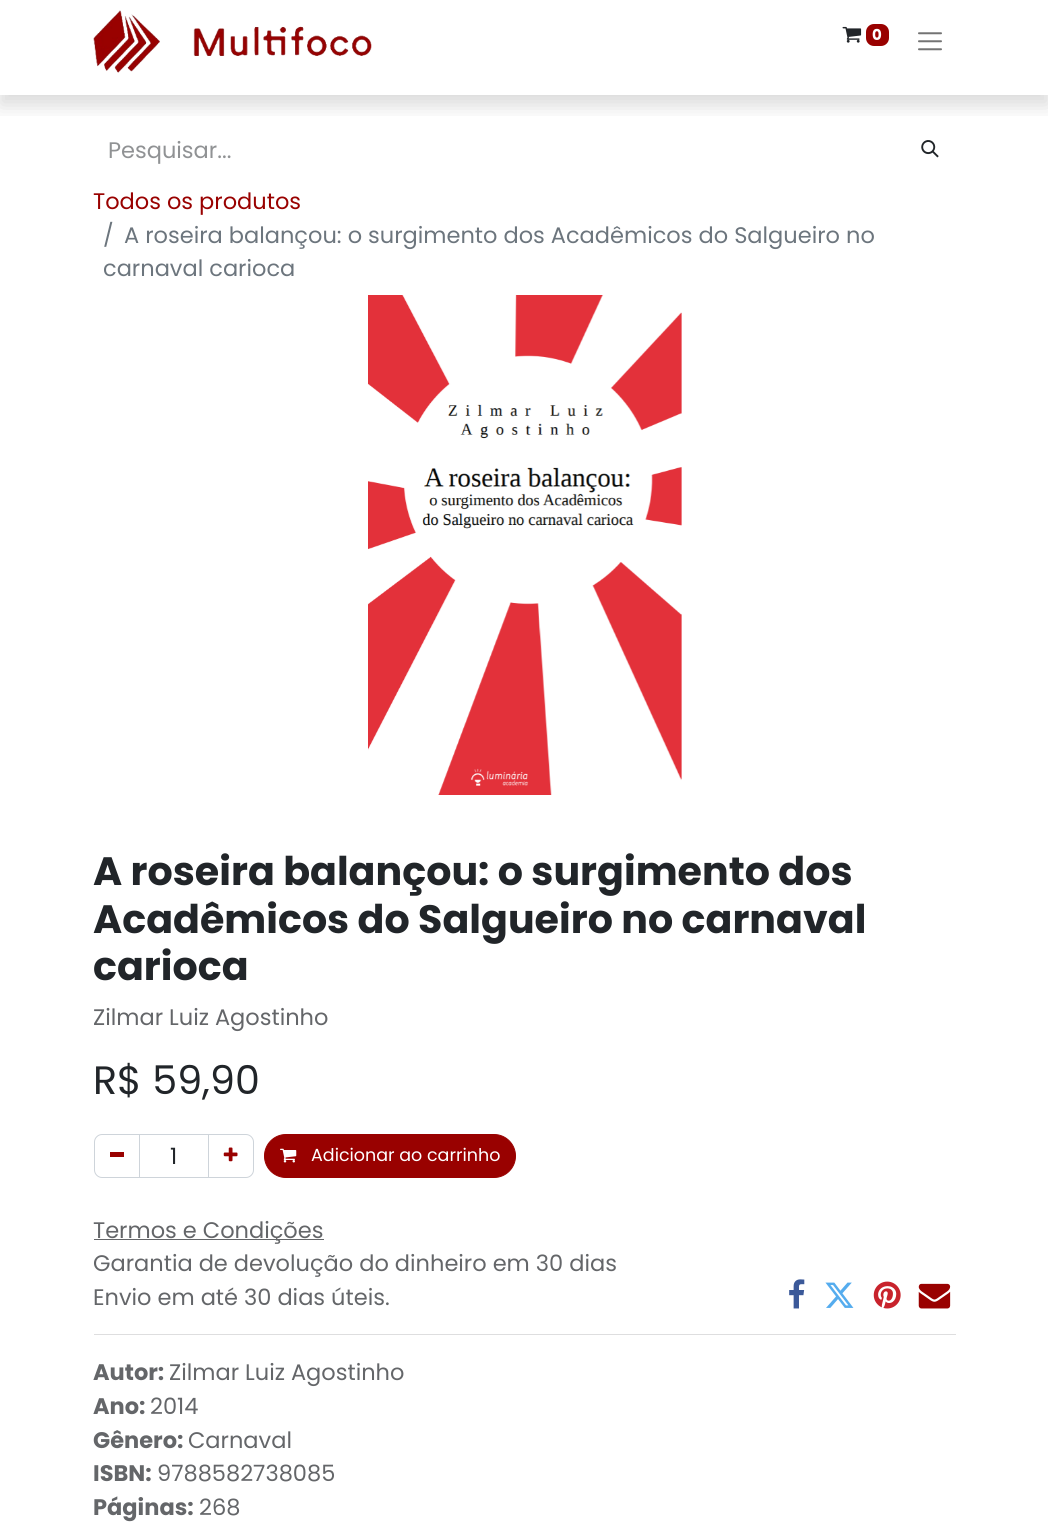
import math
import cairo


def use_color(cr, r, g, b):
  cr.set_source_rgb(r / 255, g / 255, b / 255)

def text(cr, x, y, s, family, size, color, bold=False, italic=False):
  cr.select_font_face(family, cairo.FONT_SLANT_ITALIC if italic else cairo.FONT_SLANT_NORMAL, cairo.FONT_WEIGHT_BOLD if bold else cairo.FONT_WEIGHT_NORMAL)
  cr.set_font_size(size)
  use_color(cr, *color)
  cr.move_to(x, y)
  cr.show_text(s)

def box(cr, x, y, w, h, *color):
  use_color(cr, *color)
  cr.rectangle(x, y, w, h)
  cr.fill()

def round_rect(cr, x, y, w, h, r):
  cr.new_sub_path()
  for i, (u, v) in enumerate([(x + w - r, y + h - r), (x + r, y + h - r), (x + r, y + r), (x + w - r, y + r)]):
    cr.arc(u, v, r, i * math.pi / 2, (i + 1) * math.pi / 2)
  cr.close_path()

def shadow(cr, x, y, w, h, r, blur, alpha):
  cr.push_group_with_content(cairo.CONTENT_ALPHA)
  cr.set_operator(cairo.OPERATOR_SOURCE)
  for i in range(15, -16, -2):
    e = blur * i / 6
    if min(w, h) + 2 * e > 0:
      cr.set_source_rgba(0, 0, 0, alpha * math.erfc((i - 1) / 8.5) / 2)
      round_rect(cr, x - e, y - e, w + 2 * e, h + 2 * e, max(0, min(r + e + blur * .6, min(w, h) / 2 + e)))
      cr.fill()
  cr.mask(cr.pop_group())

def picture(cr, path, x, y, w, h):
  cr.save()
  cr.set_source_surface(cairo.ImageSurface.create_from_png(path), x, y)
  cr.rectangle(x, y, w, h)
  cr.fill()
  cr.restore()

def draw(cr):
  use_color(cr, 255, 255, 255)
  cr.paint()
  cr.save()
  cr.rectangle(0, 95, 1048, 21)
  cr.clip()
  use_color(cr, 0, 0, 0)
  shadow(cr, 0, 10, 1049, 95, 0, 10, 0.15)
  cr.restore()
  picture(cr, "img_01.png", 93, 10, 279, 63)
  picture(cr, "img_02.png", 842, 26, 20, 17)
  use_color(cr, 153, 1, 0)
  round_rect(cr, 866, 24, 23, 22, 8)
  cr.fill()
  picture(cr, "img_03.png", 918, 32, 24, 19)
  picture(cr, "img_04.png", 921, 140, 18, 18)
  picture(cr, "img_05.png", 368, 295, 314, 500)
  cr.rectangle(139.5, 1134.5, 69, 43)
  use_color(cr, 206, 212, 218)
  cr.set_line_width(1)
  cr.stroke()
  cr.new_path()
  cr.move_to(102, 1134.5)
  cr.line_to(139.5, 1134.5)
  cr.line_to(139.5, 1177.5)
  cr.line_to(102, 1177.5)
  cr.curve_to(98, 1177.5, 94.5, 1174, 94.5, 1170)
  cr.line_to(94.5, 1142)
  cr.curve_to(94.5, 1138, 98, 1134.5, 102, 1134.5)
  cr.close_path()
  cr.stroke()
  box(cr, 110, 1152, 14, 5, 153, 1, 0)
  cr.new_path()
  cr.move_to(208.5, 1134.5)
  cr.line_to(246, 1134.5)
  cr.curve_to(250, 1134.5, 253.5, 1138, 253.5, 1142)
  cr.line_to(253.5, 1170)
  cr.curve_to(253.5, 1174, 250, 1177.5, 246, 1177.5)
  cr.line_to(208.5, 1177.5)
  cr.close_path()
  use_color(cr, 206, 212, 218)
  cr.stroke()
  picture(cr, "img_06.png", 223, 1147, 15, 15)
  use_color(cr, 153, 1, 0)
  round_rect(cr, 264.5, 1134.5, 251, 43, 21.5)
  cr.fill_preserve()
  cr.stroke()
  picture(cr, "img_07.png", 280, 1148, 17, 15)
  box(cr, 94, 1239, 230, 1, 100, 102, 105)
  picture(cr, "img_08.png", 789, 1279, 16, 30)
  picture(cr, "img_09.png", 825, 1282, 29, 26)
  picture(cr, "img_10.png", 873, 1281, 28, 28)
  picture(cr, "img_11.png", 918, 1283, 33, 26)
  box(cr, 94, 1334, 862, 1, 222, 222, 223)
  text(cr, 872, 40, "0", "Poppins", 15, (255, 255, 255), bold=True)
  text(cr, 108, 158, "Pesquisar...", "Poppins", 22.5, (144, 146, 148))
  text(cr, 93, 209, "Todos os produtos", "Poppins", 22.5, (153, 1, 0))
  text(cr, 103, 243, "/", "Poppins", 22.5, (108, 117, 125))
  text(cr, 124, 243, "A roseira balançou: o surgimento dos Acadêmicos do Salgueiro no", "Poppins", 22.5, (108, 117, 125))
  text(cr, 103, 276, "carnaval carioca", "Poppins", 22.5, (108, 117, 125))
  text(cr, 93, 885, "A roseira balançou: o surgimento dos", "Poppins", 39.6, (33, 37, 41), bold=True)
  text(cr, 93, 933, "Acadêmicos do Salgueiro no carnaval", "Poppins", 39.6, (33, 37, 41), bold=True)
  text(cr, 93, 980, "carioca", "Poppins", 39.6, (33, 37, 41), bold=True)
  text(cr, 93, 1025, "Zilmar Luiz Agostinho", "Poppins", 22.5, (100, 102, 105))
  text(cr, 93, 1094, "R$ 59,90", "Poppins", 39.6, (33, 37, 41))
  text(cr, 170, 1164, "1", "Poppins", 22.5, (33, 37, 41))
  text(cr, 311, 1161, "Adicionar ao carrinho", "Poppins", 17.5, (255, 255, 255))
  text(cr, 93, 1238, "Termos e Condições", "Poppins", 22.5, (100, 102, 105))
  text(cr, 93, 1271, "Garantia de devolução do dinheiro em 30 dias", "Poppins", 22.5, (100, 102, 105))
  text(cr, 93, 1305, "Envio em até 30 dias úteis.", "Poppins", 22.5, (100, 102, 105))
  text(cr, 93, 1380, "Autor:", "Poppins", 22.5, (100, 102, 105), bold=True)
  text(cr, 169, 1380, "Zilmar Luiz Agostinho", "Poppins", 22.5, (100, 102, 105))
  text(cr, 93, 1414, "Ano:", "Poppins", 22.5, (100, 102, 105), bold=True)
  text(cr, 150, 1414, "2014", "Poppins", 22.5, (100, 102, 105))
  text(cr, 93, 1448, "Gênero:", "Poppins", 22.5, (100, 102, 105), bold=True)
  text(cr, 188, 1448, "Carnaval", "Poppins", 22.5, (100, 102, 105))
  text(cr, 93, 1481, "ISBN:", "Poppins", 22.5, (100, 102, 105), bold=True)
  text(cr, 157, 1481, "9788582738085", "Poppins", 22.5, (100, 102, 105))
  text(cr, 93, 1515, "Páginas:", "Poppins", 22.5, (100, 102, 105), bold=True)
  text(cr, 199, 1515, "268", "Poppins", 22.5, (100, 102, 105))


surface = cairo.ImageSurface(cairo.FORMAT_RGB24, 1048, 1535)
cr = cairo.Context(surface)
options = cairo.FontOptions()
options.set_hint_metrics(cairo.HINT_METRICS_OFF)
options.set_hint_style(cairo.HINT_STYLE_NONE)
cr.set_font_options(options)
cr.set_miter_limit(4)
draw(cr)
surface.write_to_png("out.png")
